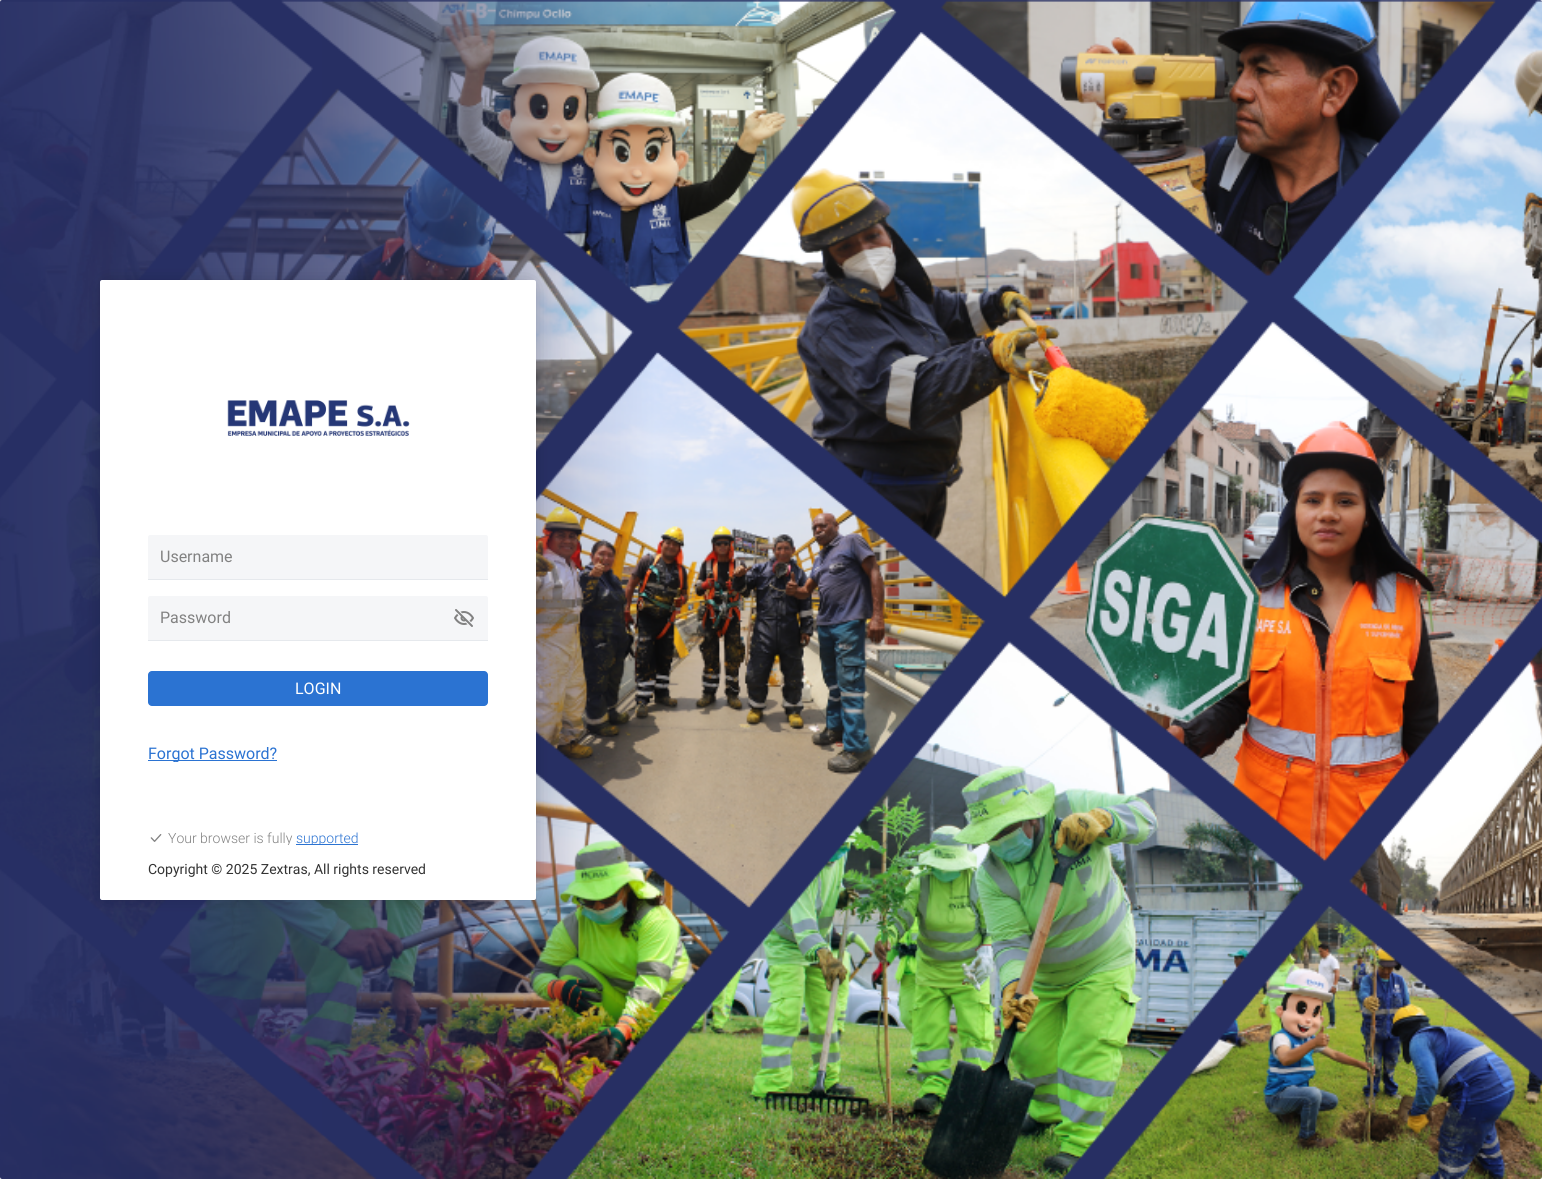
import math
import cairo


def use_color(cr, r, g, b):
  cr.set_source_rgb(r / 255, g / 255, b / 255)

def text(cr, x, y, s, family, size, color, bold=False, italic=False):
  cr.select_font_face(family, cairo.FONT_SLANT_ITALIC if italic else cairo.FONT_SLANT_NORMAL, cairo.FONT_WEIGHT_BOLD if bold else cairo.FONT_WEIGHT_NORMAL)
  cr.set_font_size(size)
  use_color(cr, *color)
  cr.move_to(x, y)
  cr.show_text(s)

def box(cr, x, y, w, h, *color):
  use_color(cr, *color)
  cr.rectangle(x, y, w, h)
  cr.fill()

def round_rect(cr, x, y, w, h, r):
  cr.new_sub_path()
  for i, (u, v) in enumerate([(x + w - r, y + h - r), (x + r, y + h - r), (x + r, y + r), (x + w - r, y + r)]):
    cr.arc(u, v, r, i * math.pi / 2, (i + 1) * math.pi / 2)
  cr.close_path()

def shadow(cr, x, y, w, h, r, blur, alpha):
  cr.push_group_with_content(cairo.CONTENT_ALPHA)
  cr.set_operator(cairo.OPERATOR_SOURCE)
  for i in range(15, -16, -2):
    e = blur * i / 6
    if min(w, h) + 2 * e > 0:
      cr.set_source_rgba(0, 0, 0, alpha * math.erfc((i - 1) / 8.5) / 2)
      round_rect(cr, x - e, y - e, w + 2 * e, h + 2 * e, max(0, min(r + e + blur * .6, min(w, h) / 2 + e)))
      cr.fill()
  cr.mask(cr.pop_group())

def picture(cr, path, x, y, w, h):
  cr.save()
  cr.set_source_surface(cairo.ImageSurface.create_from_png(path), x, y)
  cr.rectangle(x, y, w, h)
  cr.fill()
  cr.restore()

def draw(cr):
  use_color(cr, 255, 255, 255)
  cr.paint()
  picture(cr, "img_01.png", 0, 0, 1542, 1179)
  use_color(cr, 0, 0, 0)
  shadow(cr, 107, 287, 422, 606, 0, 10, 0.3)
  use_color(cr, 255, 255, 255)
  round_rect(cr, 100, 280, 436, 620, 2)
  cr.fill()
  picture(cr, "img_02.png", 227, 400, 183, 36)
  use_color(cr, 245, 246, 248)
  cr.new_path()
  cr.move_to(150, 535)
  cr.line_to(486, 535)
  cr.curve_to(487, 535, 488, 536, 488, 537)
  cr.line_to(488, 579)
  cr.line_to(148, 579)
  cr.line_to(148, 537)
  cr.curve_to(148, 536, 149, 535, 150, 535)
  cr.close_path()
  cr.fill()
  box(cr, 148, 579, 340, 1, 230, 233, 237)
  use_color(cr, 245, 246, 248)
  cr.new_path()
  cr.move_to(150, 596)
  cr.line_to(486, 596)
  cr.curve_to(487, 596, 488, 597, 488, 598)
  cr.line_to(488, 640)
  cr.line_to(148, 640)
  cr.line_to(148, 598)
  cr.curve_to(148, 597, 149, 596, 150, 596)
  cr.close_path()
  cr.fill()
  picture(cr, "img_03.png", 454, 609, 20, 18)
  box(cr, 148, 640, 340, 1, 230, 233, 237)
  use_color(cr, 43, 115, 210)
  round_rect(cr, 148, 671, 340, 35, 4)
  cr.fill()
  box(cr, 148, 760, 129, 1, 43, 115, 210)
  picture(cr, "img_04.png", 150, 834, 12, 8)
  box(cr, 296, 844, 62, 1, 43, 115, 210)
  text(cr, 160, 562, "Username", "Roboto", 16, (130, 130, 130))
  text(cr, 160, 623, "Password", "Roboto", 16, (130, 130, 130))
  text(cr, 295, 694, "LOGIN", "Roboto", 16, (255, 255, 255))
  cr.save()
  cr.rectangle(148, 746, 129, 16)
  cr.clip()
  text(cr, 148, 759, "Forgot Password?", "Roboto", 16, (43, 115, 210))
  cr.restore()
  cr.save()
  cr.rectangle(168, 831, 190, 14)
  cr.clip()
  text(cr, 168, 843, "Your browser is fully", "Roboto Light", 14, (130, 130, 130))
  text(cr, 296, 843, "supported", "Roboto Light", 14, (43, 115, 210))
  cr.restore()
  text(cr, 148, 874, "Copyright © 2025 Zextras, All rights reserved", "Roboto", 14, (51, 51, 51))


surface = cairo.ImageSurface(cairo.FORMAT_RGB24, 1542, 1179)
cr = cairo.Context(surface)
options = cairo.FontOptions()
options.set_hint_metrics(cairo.HINT_METRICS_OFF)
options.set_hint_style(cairo.HINT_STYLE_NONE)
cr.set_font_options(options)
cr.set_miter_limit(4)
draw(cr)
surface.write_to_png("out.png")
